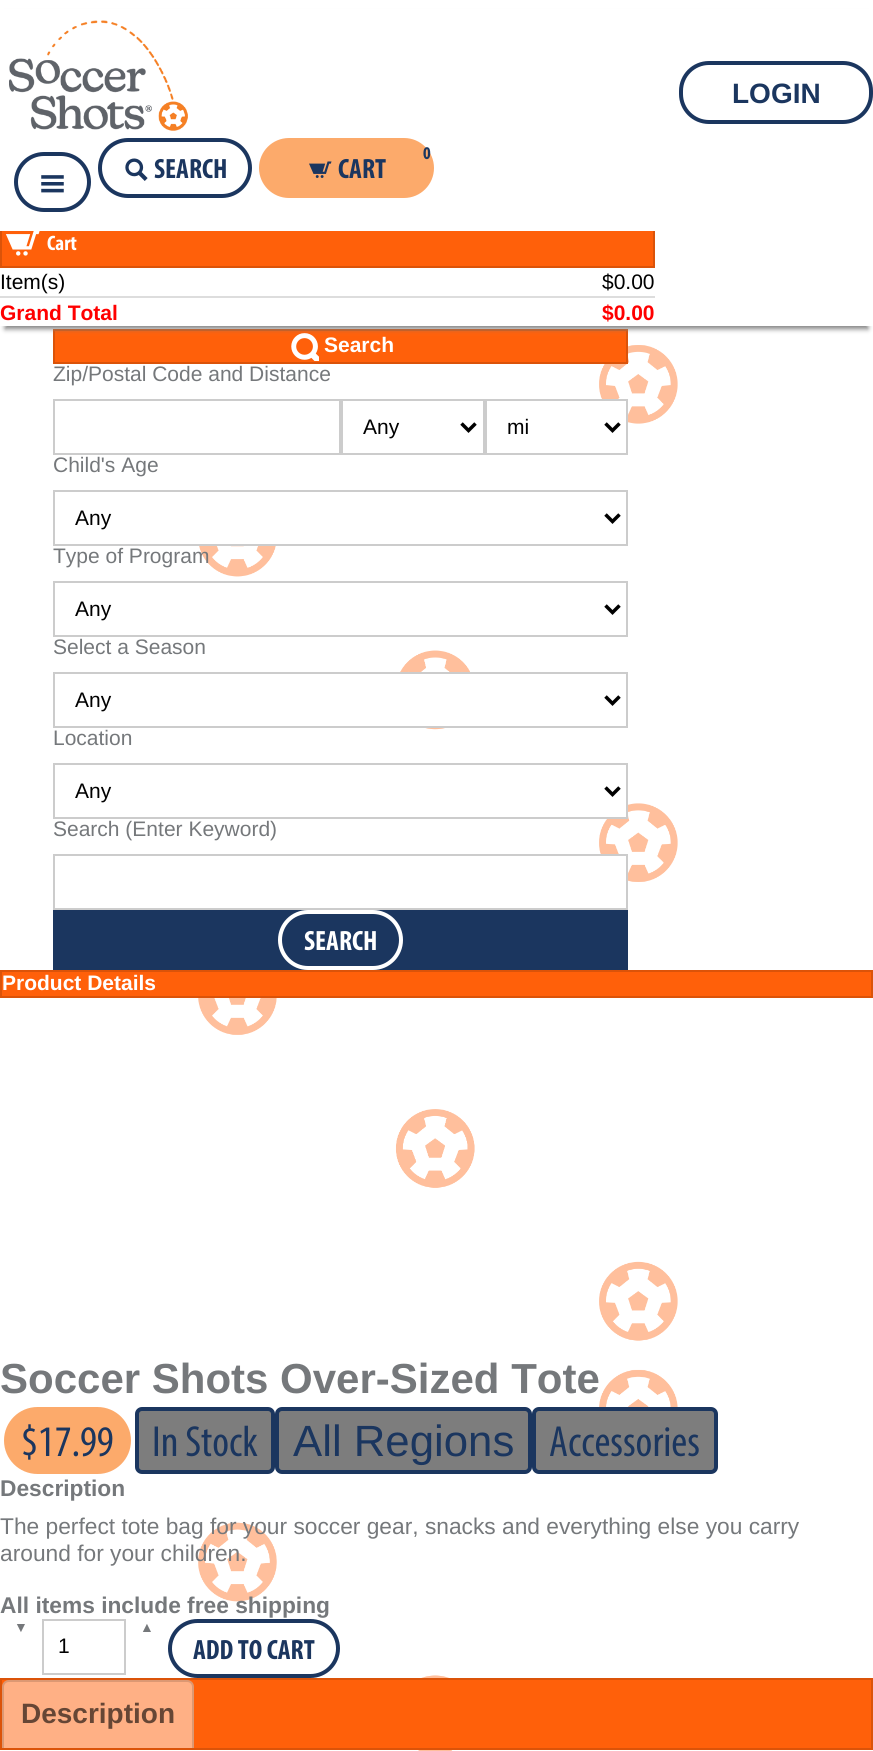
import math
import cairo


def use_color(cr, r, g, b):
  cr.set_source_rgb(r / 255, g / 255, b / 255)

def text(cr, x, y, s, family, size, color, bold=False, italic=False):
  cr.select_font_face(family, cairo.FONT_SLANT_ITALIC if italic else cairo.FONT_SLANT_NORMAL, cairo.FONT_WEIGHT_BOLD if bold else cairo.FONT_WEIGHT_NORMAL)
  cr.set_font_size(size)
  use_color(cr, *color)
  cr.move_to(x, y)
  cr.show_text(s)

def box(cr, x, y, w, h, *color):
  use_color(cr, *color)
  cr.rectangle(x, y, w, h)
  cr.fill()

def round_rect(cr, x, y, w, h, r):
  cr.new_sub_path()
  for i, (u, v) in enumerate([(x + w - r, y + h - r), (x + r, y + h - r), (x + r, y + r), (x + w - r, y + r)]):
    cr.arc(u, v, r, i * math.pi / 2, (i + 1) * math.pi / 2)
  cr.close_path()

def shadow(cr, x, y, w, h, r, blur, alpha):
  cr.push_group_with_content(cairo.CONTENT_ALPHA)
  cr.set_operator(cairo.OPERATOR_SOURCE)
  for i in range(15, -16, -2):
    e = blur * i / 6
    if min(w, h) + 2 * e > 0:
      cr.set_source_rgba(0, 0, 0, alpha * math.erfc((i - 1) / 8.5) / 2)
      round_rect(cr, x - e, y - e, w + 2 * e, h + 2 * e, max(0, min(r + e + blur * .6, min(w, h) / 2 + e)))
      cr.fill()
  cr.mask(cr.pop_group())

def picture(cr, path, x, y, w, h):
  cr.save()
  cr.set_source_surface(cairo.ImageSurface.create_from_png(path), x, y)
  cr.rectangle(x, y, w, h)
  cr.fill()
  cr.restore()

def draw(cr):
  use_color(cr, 255, 255, 255)
  cr.paint()
  picture(cr, "img_06.png", 198, 345, 480, 1406)
  use_color(cr, 255, 96, 10)
  cr.rectangle(54, 330, 573, 33)
  cr.fill_preserve()
  use_color(cr, 219, 83, 9)
  cr.stroke()
  picture(cr, "img_07.png", 291, 333, 28, 28)
  use_color(cr, 130, 130, 130)
  shadow(cr, 5, 14, 863, 315, 0, 2.5, 1)
  box(cr, 0, 9, 873, 317, 255, 255, 255)
  picture(cr, "img_01.png", 9, 20, 179, 111)
  round_rect(cr, 681, 63, 190, 59, 28)
  use_color(cr, 27, 54, 95)
  cr.set_line_width(4)
  cr.stroke()
  box(cr, 2, 231, 651, 35, 255, 96, 10)
  cr.rectangle(1, 223, 653, 44)
  use_color(cr, 219, 83, 9)
  cr.set_line_width(2)
  cr.stroke()
  box(cr, 0, 222, 655, 9, 255, 255, 255)
  round_rect(cr, 16, 154, 73, 56, 28)
  use_color(cr, 27, 54, 95)
  cr.set_line_width(4)
  cr.stroke()
  picture(cr, "img_02.png", 41, 175, 23, 18)
  round_rect(cr, 100, 140, 150, 56, 28)
  cr.stroke()
  picture(cr, "img_03.png", 125, 158, 23, 23)
  use_color(cr, 252, 170, 107)
  round_rect(cr, 261, 140, 171, 56, 28)
  cr.fill_preserve()
  cr.stroke()
  picture(cr, "img_04.png", 309, 161, 23, 17)
  picture(cr, "img_05.png", 5, 231, 35, 25)
  box(cr, 0, 296, 655, 2, 221, 221, 221)
  cr.rectangle(54, 400, 286, 54)
  use_color(cr, 204, 204, 204)
  cr.set_line_width(2)
  cr.stroke()
  cr.rectangle(342, 400, 142, 54)
  cr.stroke()
  cr.new_path()
  cr.move_to(461.5, 423.5)
  cr.line_to(468.5, 430.5)
  cr.line_to(475.5, 423.5)
  use_color(cr, 0, 0, 0)
  cr.set_line_width(3.5)
  cr.stroke()
  box(cr, 603, 401, 23, 21, 255, 255, 255)
  cr.rectangle(486, 400, 141, 54)
  use_color(cr, 204, 204, 204)
  cr.set_line_width(2)
  cr.stroke()
  cr.new_path()
  cr.move_to(605.5, 423.5)
  cr.line_to(612.5, 430.5)
  cr.line_to(619.5, 423.5)
  use_color(cr, 0, 0, 0)
  cr.set_line_width(3.5)
  cr.stroke()
  box(cr, 198, 497, 79, 47, 255, 255, 255)
  cr.rectangle(54, 491, 573, 54)
  use_color(cr, 204, 204, 204)
  cr.set_line_width(2)
  cr.stroke()
  cr.new_path()
  cr.move_to(605.5, 514.5)
  cr.line_to(612.5, 521.5)
  cr.line_to(619.5, 514.5)
  use_color(cr, 0, 0, 0)
  cr.set_line_width(3.5)
  cr.stroke()
  cr.rectangle(54, 582, 573, 54)
  use_color(cr, 204, 204, 204)
  cr.set_line_width(2)
  cr.stroke()
  cr.new_path()
  cr.move_to(605.5, 605.5)
  cr.line_to(612.5, 612.5)
  cr.line_to(619.5, 605.5)
  use_color(cr, 0, 0, 0)
  cr.set_line_width(3.5)
  cr.stroke()
  box(cr, 395, 674, 80, 52, 255, 255, 255)
  cr.rectangle(54, 673, 573, 54)
  use_color(cr, 204, 204, 204)
  cr.set_line_width(2)
  cr.stroke()
  cr.new_path()
  cr.move_to(605.5, 696.5)
  cr.line_to(612.5, 703.5)
  cr.line_to(619.5, 696.5)
  use_color(cr, 0, 0, 0)
  cr.set_line_width(3.5)
  cr.stroke()
  box(cr, 608, 805, 18, 12, 255, 255, 255)
  cr.rectangle(54, 764, 573, 54)
  use_color(cr, 204, 204, 204)
  cr.set_line_width(2)
  cr.stroke()
  cr.new_path()
  cr.move_to(605.5, 787.5)
  cr.line_to(612.5, 794.5)
  cr.line_to(619.5, 787.5)
  use_color(cr, 0, 0, 0)
  cr.set_line_width(3.5)
  cr.stroke()
  box(cr, 601, 856, 25, 24, 255, 255, 255)
  cr.rectangle(54, 855, 573, 54)
  use_color(cr, 204, 204, 204)
  cr.set_line_width(2)
  cr.stroke()
  box(cr, 53, 910, 575, 60, 27, 54, 95)
  round_rect(cr, 280, 912, 121, 56, 28)
  use_color(cr, 255, 255, 255)
  cr.set_line_width(4)
  cr.stroke()
  use_color(cr, 255, 96, 10)
  cr.rectangle(1, 971, 871, 26)
  cr.fill_preserve()
  use_color(cr, 219, 83, 9)
  cr.set_line_width(2)
  cr.stroke()
  use_color(cr, 252, 170, 107)
  round_rect(cr, 6, 1409, 123, 63, 31.5)
  cr.fill_preserve()
  cr.set_line_width(4)
  cr.stroke()
  use_color(cr, 125, 125, 125)
  round_rect(cr, 137, 1409, 136, 63, 5)
  cr.fill_preserve()
  use_color(cr, 27, 54, 95)
  cr.stroke()
  use_color(cr, 125, 125, 125)
  round_rect(cr, 277, 1409, 253, 63, 5)
  cr.fill_preserve()
  use_color(cr, 27, 54, 95)
  cr.stroke()
  use_color(cr, 125, 125, 125)
  round_rect(cr, 534, 1409, 182, 63, 5)
  cr.fill_preserve()
  use_color(cr, 27, 54, 95)
  cr.stroke()
  cr.rectangle(43, 1620, 82, 54)
  use_color(cr, 204, 204, 204)
  cr.set_line_width(2)
  cr.stroke()
  round_rect(cr, 170, 1621, 168, 55, 27.5)
  use_color(cr, 27, 54, 95)
  cr.set_line_width(4)
  cr.stroke()
  use_color(cr, 255, 96, 10)
  cr.rectangle(1, 1679, 871, 70)
  cr.fill_preserve()
  use_color(cr, 219, 83, 9)
  cr.set_line_width(2)
  cr.stroke()
  use_color(cr, 255, 176, 133)
  cr.new_path()
  cr.move_to(9, 1680)
  cr.line_to(187, 1680)
  cr.curve_to(191, 1680, 194, 1683, 194, 1687)
  cr.line_to(194, 1748)
  cr.line_to(2, 1748)
  cr.line_to(2, 1687)
  cr.curve_to(2, 1683, 5, 1680, 9, 1680)
  cr.close_path()
  cr.fill()
  cr.set_source_rgba(0, 0, 0, 0.14)
  cr.set_fill_rule(cairo.FILL_RULE_EVEN_ODD)
  cr.new_path()
  cr.move_to(9, 1680)
  cr.line_to(187, 1680)
  cr.curve_to(191, 1680, 194, 1683, 194, 1687)
  cr.line_to(194, 1748)
  cr.line_to(2, 1748)
  cr.line_to(2, 1687)
  cr.curve_to(2, 1683, 5, 1680, 9, 1680)
  cr.close_path()
  cr.move_to(9, 1682)
  cr.line_to(187, 1682)
  cr.curve_to(190, 1682, 192, 1684, 192, 1687)
  cr.line_to(192, 1748)
  cr.line_to(4, 1748)
  cr.line_to(4, 1687)
  cr.curve_to(4, 1684, 6, 1682, 9, 1682)
  cr.close_path()
  cr.fill()
  text(cr, 732, 103, "LOGIN", "Liberation Sans", 28, (27, 54, 95), bold=True)
  text(cr, 154, 178, "SEARCH", "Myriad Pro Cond", 28, (27, 54, 95), bold=True)
  text(cr, 423, 159, "0", "Myriad Pro Cond", 18, (27, 54, 95), bold=True)
  text(cr, 338, 178, "CART", "Myriad Pro Cond", 28, (27, 54, 95), bold=True)
  text(cr, 47, 250, "Cart", "Myriad Pro Cond", 21, (255, 255, 255), bold=True)
  text(cr, 0, 289, "Item(s)", "Liberation Sans", 21, (0, 0, 0))
  text(cr, 602, 289, "$0.00", "Liberation Sans", 21, (0, 0, 0))
  text(cr, 0, 320, "Grand Total", "Liberation Sans", 21, (255, 0, 0), bold=True)
  text(cr, 602, 320, "$0.00", "Liberation Sans", 21, (255, 0, 0), bold=True)
  text(cr, 324, 352, "Search", "Liberation Sans", 21, (255, 255, 255), bold=True)
  text(cr, 53, 381, "Zip/Postal Code and Distance", "Liberation Sans", 21, (117, 120, 123))
  text(cr, 363, 434, "Any", "Liberation Sans", 21, (0, 0, 0))
  text(cr, 507, 434, "mi", "Liberation Sans", 21, (0, 0, 0))
  text(cr, 53, 472, "Child's Age", "Liberation Sans", 21, (117, 120, 123))
  text(cr, 75, 525, "Any", "Liberation Sans", 21, (0, 0, 0))
  text(cr, 53, 563, "Type of Program", "Liberation Sans", 21, (117, 120, 123))
  text(cr, 75, 616, "Any", "Liberation Sans", 21, (0, 0, 0))
  text(cr, 53, 654, "Select a Season", "Liberation Sans", 21, (117, 120, 123))
  text(cr, 75, 707, "Any", "Liberation Sans", 21, (0, 0, 0))
  text(cr, 53, 745, "Location", "Liberation Sans", 21, (117, 120, 123))
  text(cr, 75, 798, "Any", "Liberation Sans", 21, (0, 0, 0))
  text(cr, 53, 836, "Search (Enter Keyword)", "Liberation Sans", 21, (117, 120, 123))
  text(cr, 304, 950, "SEARCH", "Myriad Pro Cond", 28, (255, 255, 255), bold=True)
  text(cr, 2, 990, "Product Details", "Liberation Sans", 21, (255, 255, 255), bold=True)
  text(cr, 0, 1393, "Soccer Shots Over-Sized Tote", "Liberation Sans", 42, (117, 120, 123), bold=True)
  text(cr, 21, 1456, "$17.99", "Myriad Pro Cond", 43.75, (27, 54, 95))
  text(cr, 152, 1456, "In Stock", "Myriad Pro Cond", 43.75, (27, 54, 95))
  text(cr, 293, 1456, "All Regions", "Liberation Sans", 43.75, (27, 54, 95))
  text(cr, 549, 1456, "Accessories", "Myriad Pro Cond", 43.75, (27, 54, 95))
  text(cr, 0, 1496, "Description", "Liberation Sans", 22.75, (117, 120, 123), bold=True)
  text(cr, 0, 1534, "The perfect tote bag for your soccer gear, snacks and everything else you carry", "Liberation Sans", 22.75, (117, 120, 123))
  text(cr, 0, 1561, "around for your children.", "Liberation Sans", 22.75, (117, 120, 123))
  text(cr, 0, 1613, "All items include free shipping", "Liberation Sans", 22.75, (117, 120, 123), bold=True)
  text(cr, 14, 1632, "▼", "Liberation Sans", 14, (117, 120, 123))
  text(cr, 140, 1632, "▲", "Liberation Sans", 14, (117, 120, 123))
  text(cr, 58, 1653, "1", "Liberation Sans", 21, (0, 0, 0))
  text(cr, 193, 1659, "ADD TO CART", "Myriad Pro Cond", 28, (27, 54, 95), bold=True)
  text(cr, 21, 1723, "Description", "Liberation Sans", 28, (102, 70, 53), bold=True)


surface = cairo.ImageSurface(cairo.FORMAT_RGB24, 873, 1751)
cr = cairo.Context(surface)
options = cairo.FontOptions()
options.set_hint_metrics(cairo.HINT_METRICS_OFF)
options.set_hint_style(cairo.HINT_STYLE_NONE)
cr.set_font_options(options)
cr.set_miter_limit(4)
draw(cr)
surface.write_to_png("out.png")
